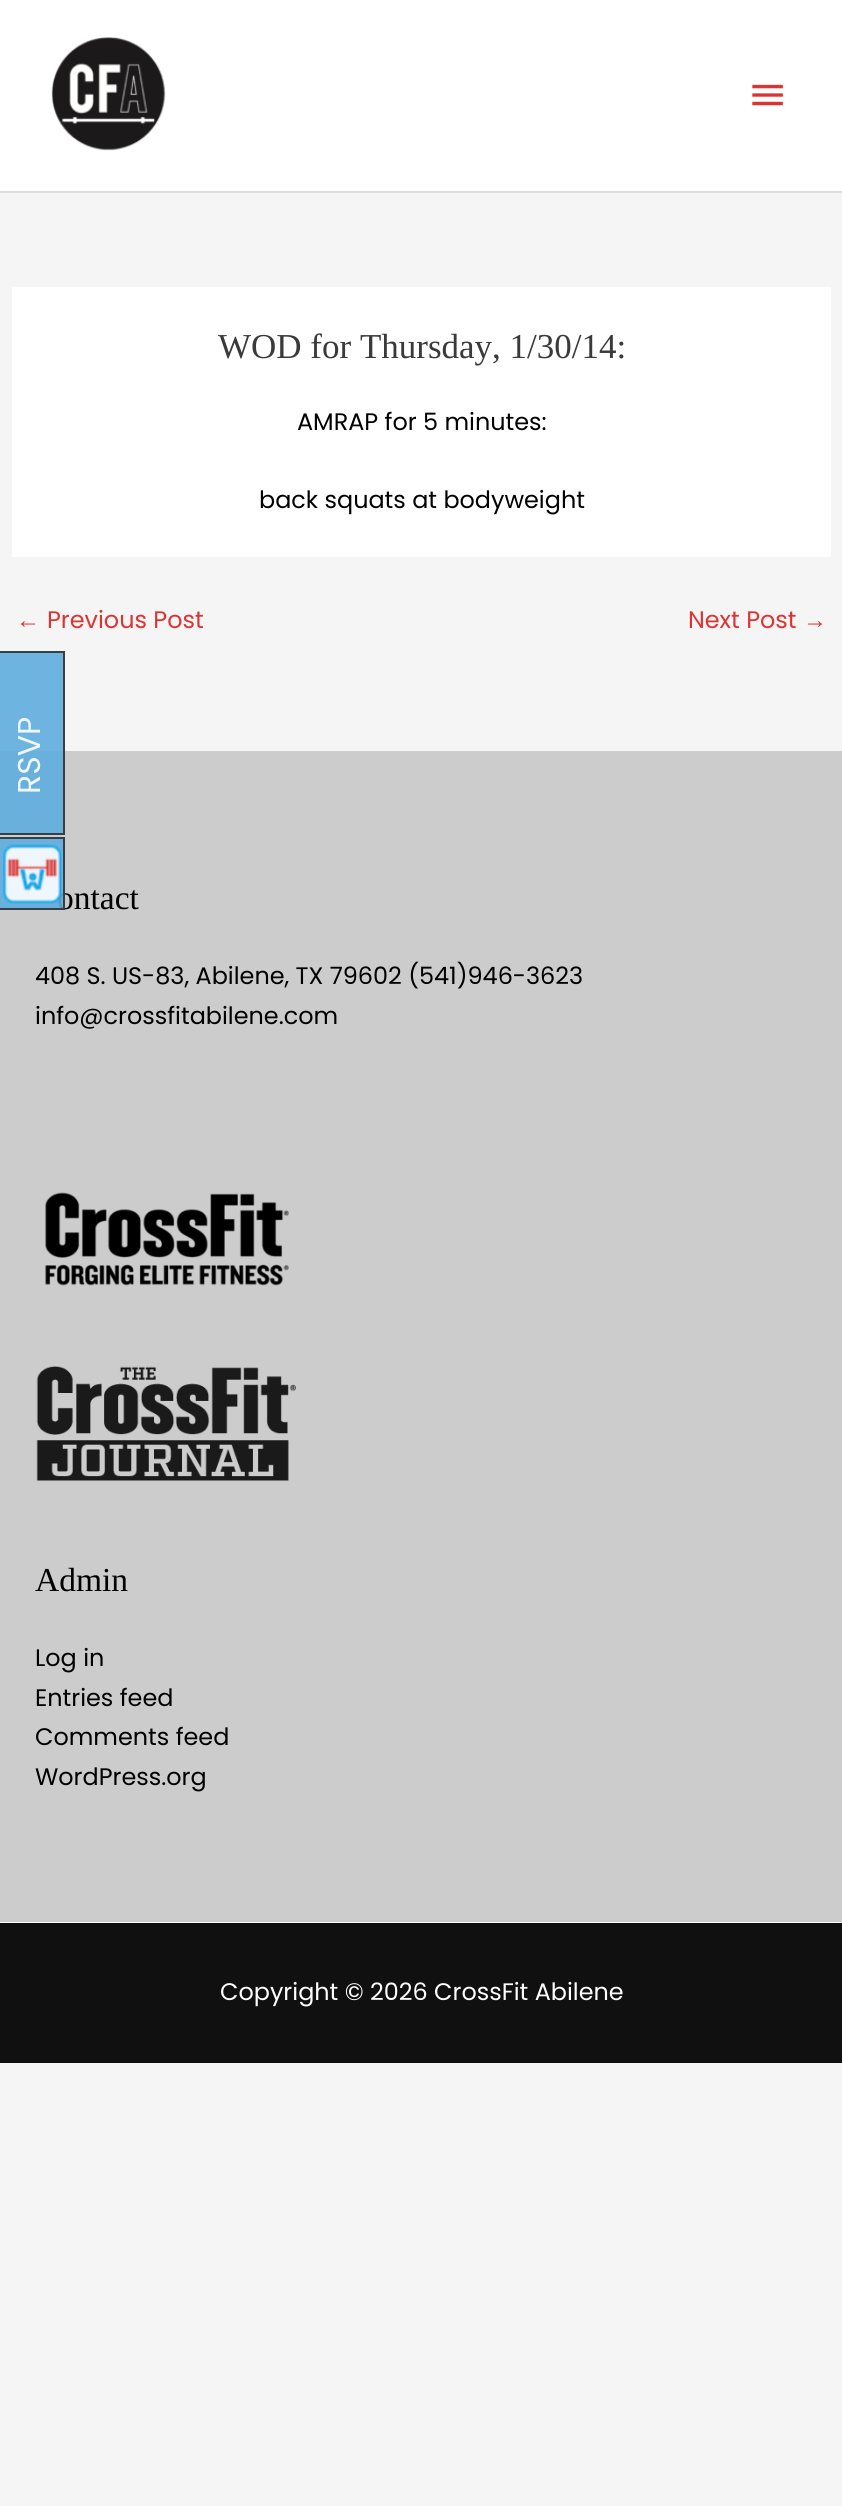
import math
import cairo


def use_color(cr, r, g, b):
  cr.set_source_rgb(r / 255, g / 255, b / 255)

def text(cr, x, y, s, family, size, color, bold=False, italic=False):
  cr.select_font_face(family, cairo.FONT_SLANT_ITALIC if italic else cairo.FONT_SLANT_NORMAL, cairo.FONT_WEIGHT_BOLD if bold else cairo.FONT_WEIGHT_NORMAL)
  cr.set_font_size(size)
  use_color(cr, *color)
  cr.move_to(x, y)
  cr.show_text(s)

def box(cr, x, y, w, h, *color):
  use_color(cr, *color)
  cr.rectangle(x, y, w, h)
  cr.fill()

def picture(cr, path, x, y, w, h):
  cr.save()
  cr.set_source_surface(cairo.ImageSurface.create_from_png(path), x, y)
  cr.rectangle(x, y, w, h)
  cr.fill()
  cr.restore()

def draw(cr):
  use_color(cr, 245, 245, 245)
  cr.paint()
  box(cr, 0, 651, 65, 100, 109, 180, 224)
  box(cr, 0, 0, 842, 191, 255, 255, 255)
  box(cr, 0, 191, 842, 2, 221, 221, 221)
  picture(cr, "img_01.png", 51, 37, 115, 114)
  picture(cr, "img_02.png", 752, 84, 31, 22)
  box(cr, 12, 287, 819, 270, 255, 255, 255)
  box(cr, 0, 751, 842, 1171, 204, 204, 204)
  box(cr, 0, 751, 65, 84, 105, 176, 220)
  picture(cr, "img_03.png", 45, 1192, 244, 94)
  picture(cr, "img_04.png", 36, 1366, 260, 115)
  box(cr, 0, 1922, 842, 1, 255, 255, 255)
  box(cr, 0, 1923, 842, 140, 17, 16, 16)
  cr.rectangle(-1, 652, 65, 182)
  cr.set_source_rgba(0.2, 0.2, 0.2, 0.9)
  cr.stroke()
  text(cr, 218, 358, "WOD for Thursday, 1/30/14:", "Liberation Serif", 35, (58, 58, 58))
  text(cr, 297, 430, "AMRAP for 5 minutes:", "Poppins", 23.9, (0, 0, 0))
  text(cr, 259, 508, "back squats at bodyweight", "Poppins", 23.9, (0, 0, 0))
  text(cr, 16, 628, "←", "Liberation Sans", 23.9, (221, 51, 51))
  text(cr, 47, 628, "Previous Post", "Poppins", 23.9, (221, 51, 51))
  text(cr, 688, 628, "Next Post", "Poppins", 23.9, (221, 51, 51))
  text(cr, 803, 628, "→", "Liberation Sans", 23.9, (221, 51, 51))
  text(cr, 57, 909, "ontact", "Liberation Serif", 33.5, (0, 0, 0))
  text(cr, 35, 984, "408 S. US-83, Abilene, TX 79602 (541)946-3623", "Poppins", 23.9, (0, 0, 0))
  text(cr, 35, 1024, "info@crossfitabilene.com", "Poppins", 23.9, (0, 0, 0))
  text(cr, 35, 1591, "Admin", "Liberation Serif", 33.5, (0, 0, 0))
  text(cr, 35, 1666, "Log in", "Poppins", 23.9, (0, 0, 0))
  text(cr, 35, 1706, "Entries feed", "Poppins", 23.9, (0, 0, 0))
  text(cr, 35, 1745, "Comments feed", "Poppins", 23.9, (0, 0, 0))
  text(cr, 35, 1785, "WordPress.org", "Poppins", 23.9, (0, 0, 0))
  text(cr, 220, 2000, "Copyright © 2026 CrossFit Abilene", "Poppins", 23.9, (255, 255, 255))
  cr.save()
  cr.translate(40, 794)
  cr.rotate(-90 * math.pi / 180)
  text(cr, 0, 0, "RSVP", "Poppins", 31.5, (240, 247, 252))
  cr.restore()
  cr.set_source_rgba(0.369, 0.678, 0.871, 0.9)
  cr.rectangle(0, 837, 65, 73)
  cr.fill()
  picture(cr, "img_05.png", 3, 844, 59, 60)
  cr.rectangle(-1, 838, 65, 71)
  cr.set_source_rgba(0.2, 0.2, 0.2, 0.9)
  cr.stroke()


surface = cairo.ImageSurface(cairo.FORMAT_RGB24, 842, 2506)
cr = cairo.Context(surface)
options = cairo.FontOptions()
options.set_hint_metrics(cairo.HINT_METRICS_OFF)
options.set_hint_style(cairo.HINT_STYLE_NONE)
cr.set_font_options(options)
cr.set_miter_limit(4)
draw(cr)
surface.write_to_png("out.png")
